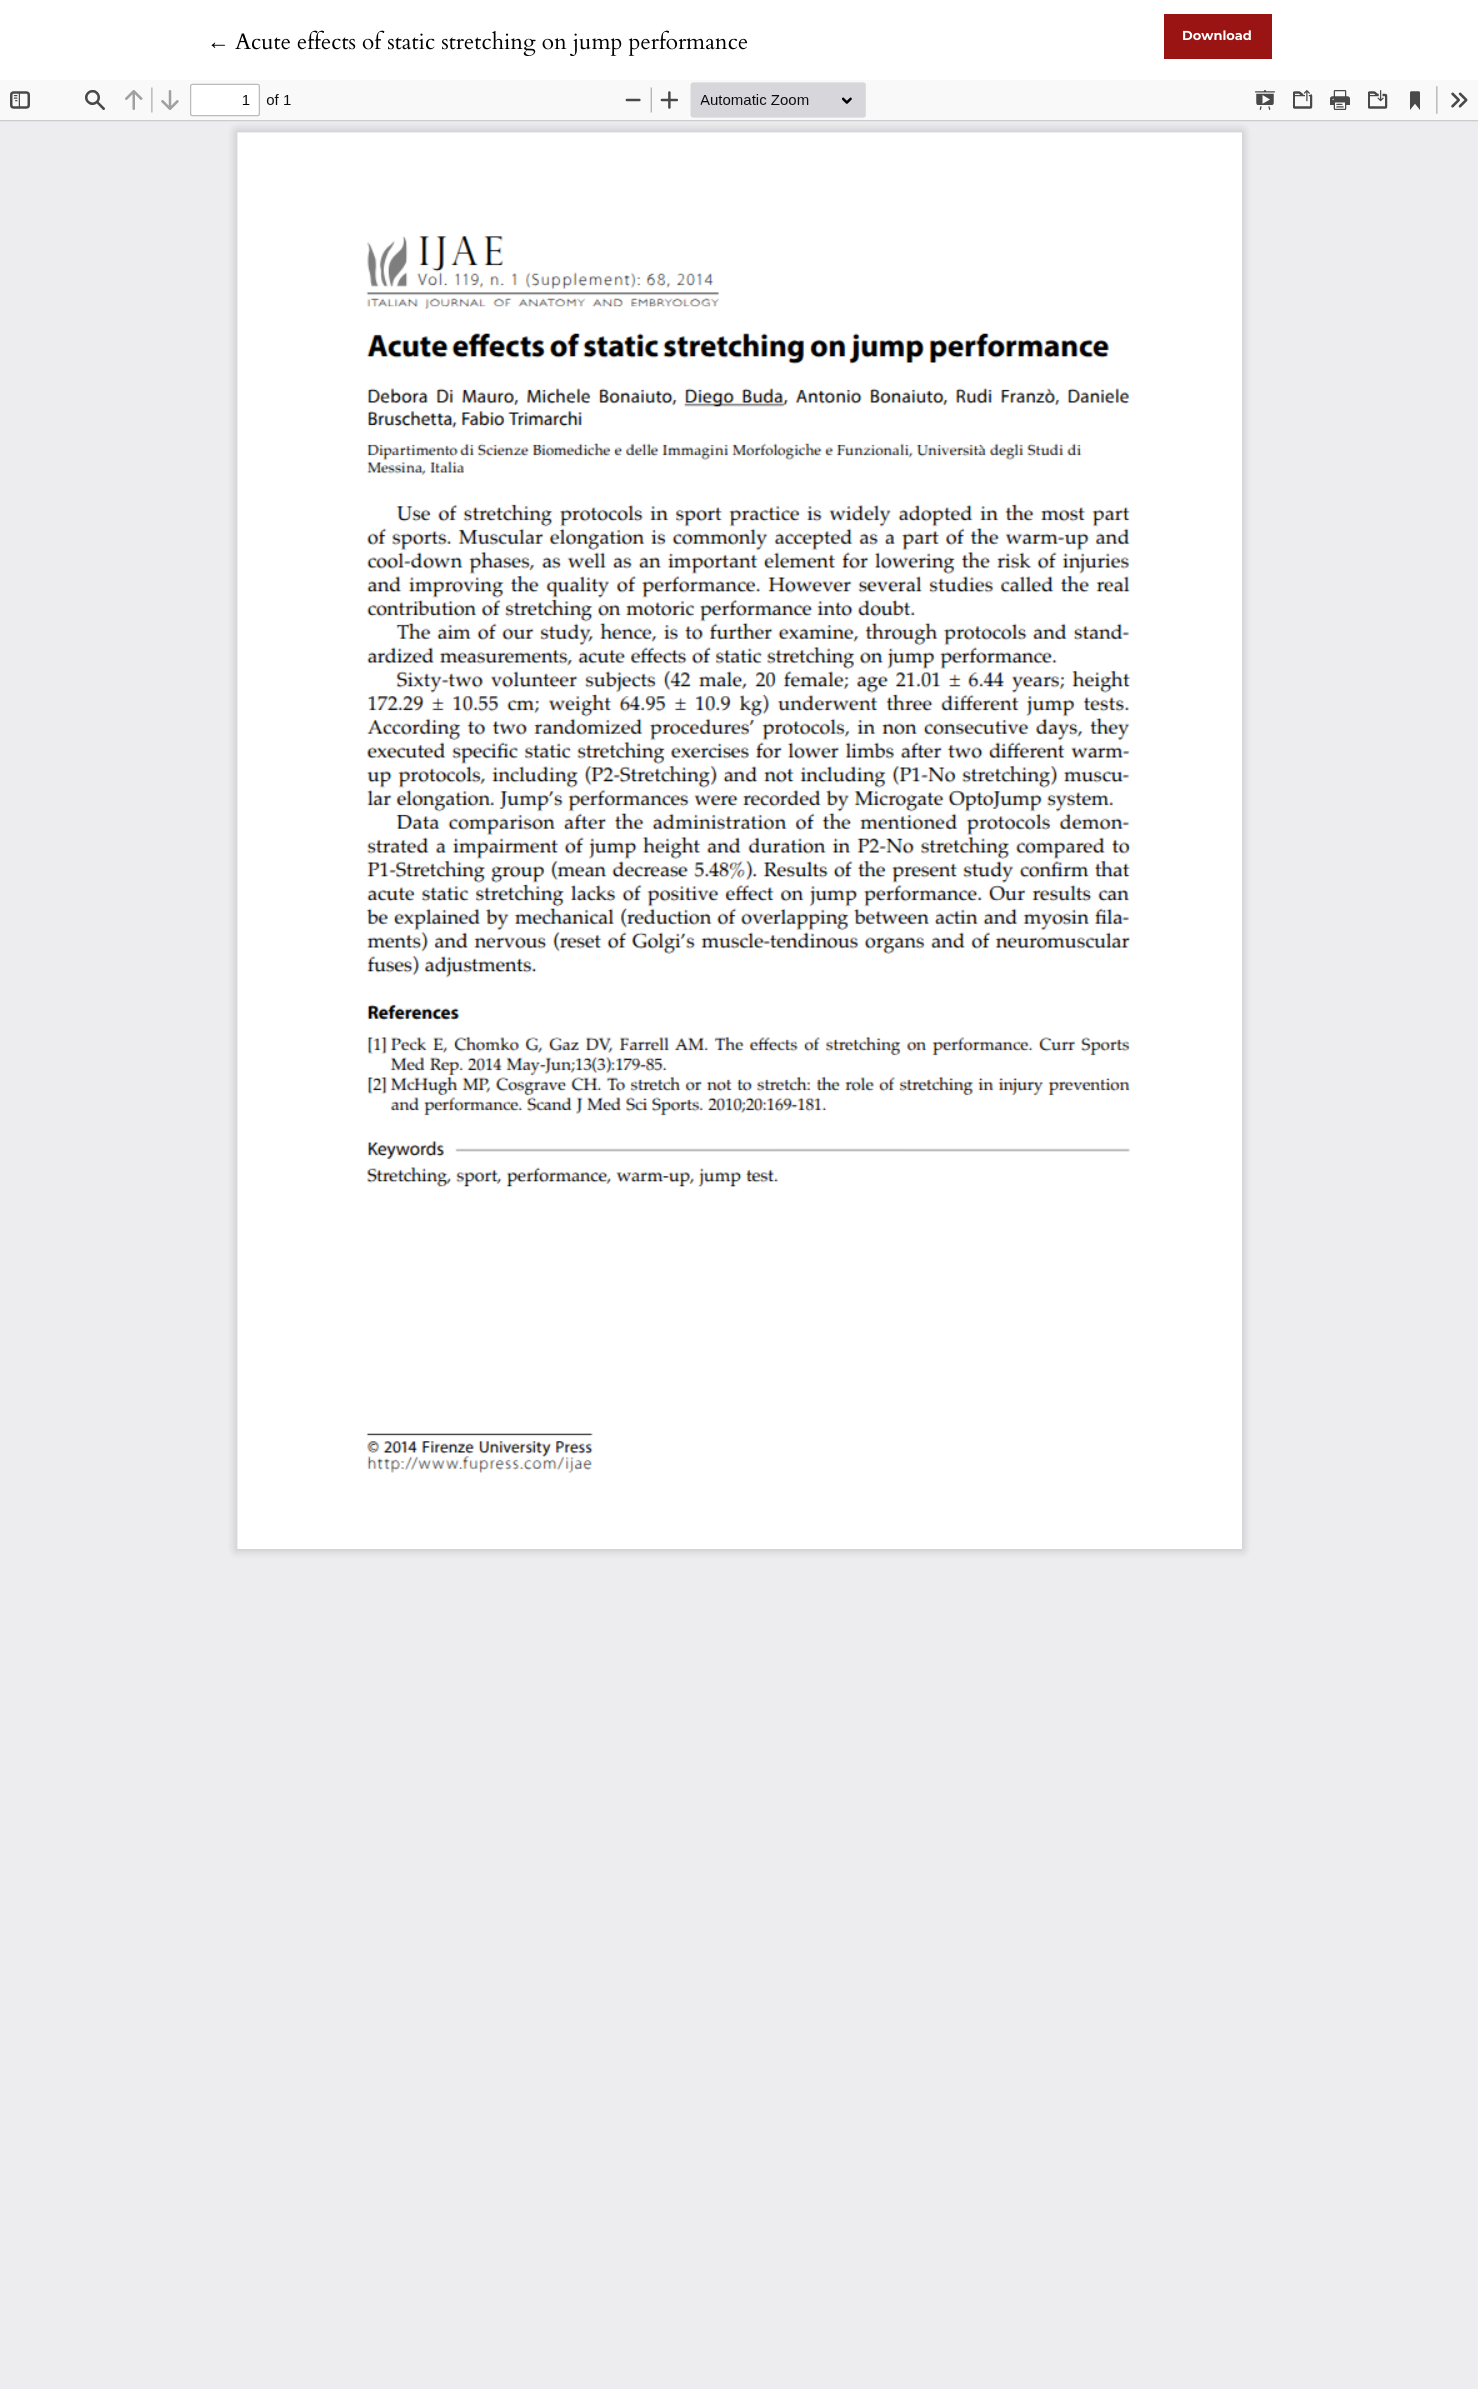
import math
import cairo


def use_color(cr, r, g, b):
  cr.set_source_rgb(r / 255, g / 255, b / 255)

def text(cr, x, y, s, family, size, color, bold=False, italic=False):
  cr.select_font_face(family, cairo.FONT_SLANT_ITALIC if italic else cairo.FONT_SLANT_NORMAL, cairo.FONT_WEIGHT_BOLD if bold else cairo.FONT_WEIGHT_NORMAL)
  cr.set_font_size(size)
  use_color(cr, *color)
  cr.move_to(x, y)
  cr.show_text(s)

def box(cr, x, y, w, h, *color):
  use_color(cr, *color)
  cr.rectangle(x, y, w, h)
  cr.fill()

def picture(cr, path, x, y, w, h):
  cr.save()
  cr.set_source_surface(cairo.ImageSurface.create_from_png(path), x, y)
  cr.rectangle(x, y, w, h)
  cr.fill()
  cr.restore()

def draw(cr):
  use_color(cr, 255, 255, 255)
  cr.paint()
  box(cr, 1164, 14, 108, 45, 154, 20, 19)
  picture(cr, "img_01.png", 0, 80, 1478, 2309)
  text(cr, 207, 49, "←", "Liberation Serif", 22.5, (0, 0, 0))
  text(cr, 235, 49, "Acute effects of static stretching on jump performance", "Cardo", 22.5, (0, 0, 0))
  text(cr, 1182, 40, "Download", "Montserrat", 13, (255, 255, 255), bold=True)


surface = cairo.ImageSurface(cairo.FORMAT_RGB24, 1478, 2389)
cr = cairo.Context(surface)
options = cairo.FontOptions()
options.set_hint_metrics(cairo.HINT_METRICS_OFF)
options.set_hint_style(cairo.HINT_STYLE_NONE)
cr.set_font_options(options)
cr.set_miter_limit(4)
draw(cr)
surface.write_to_png("out.png")
